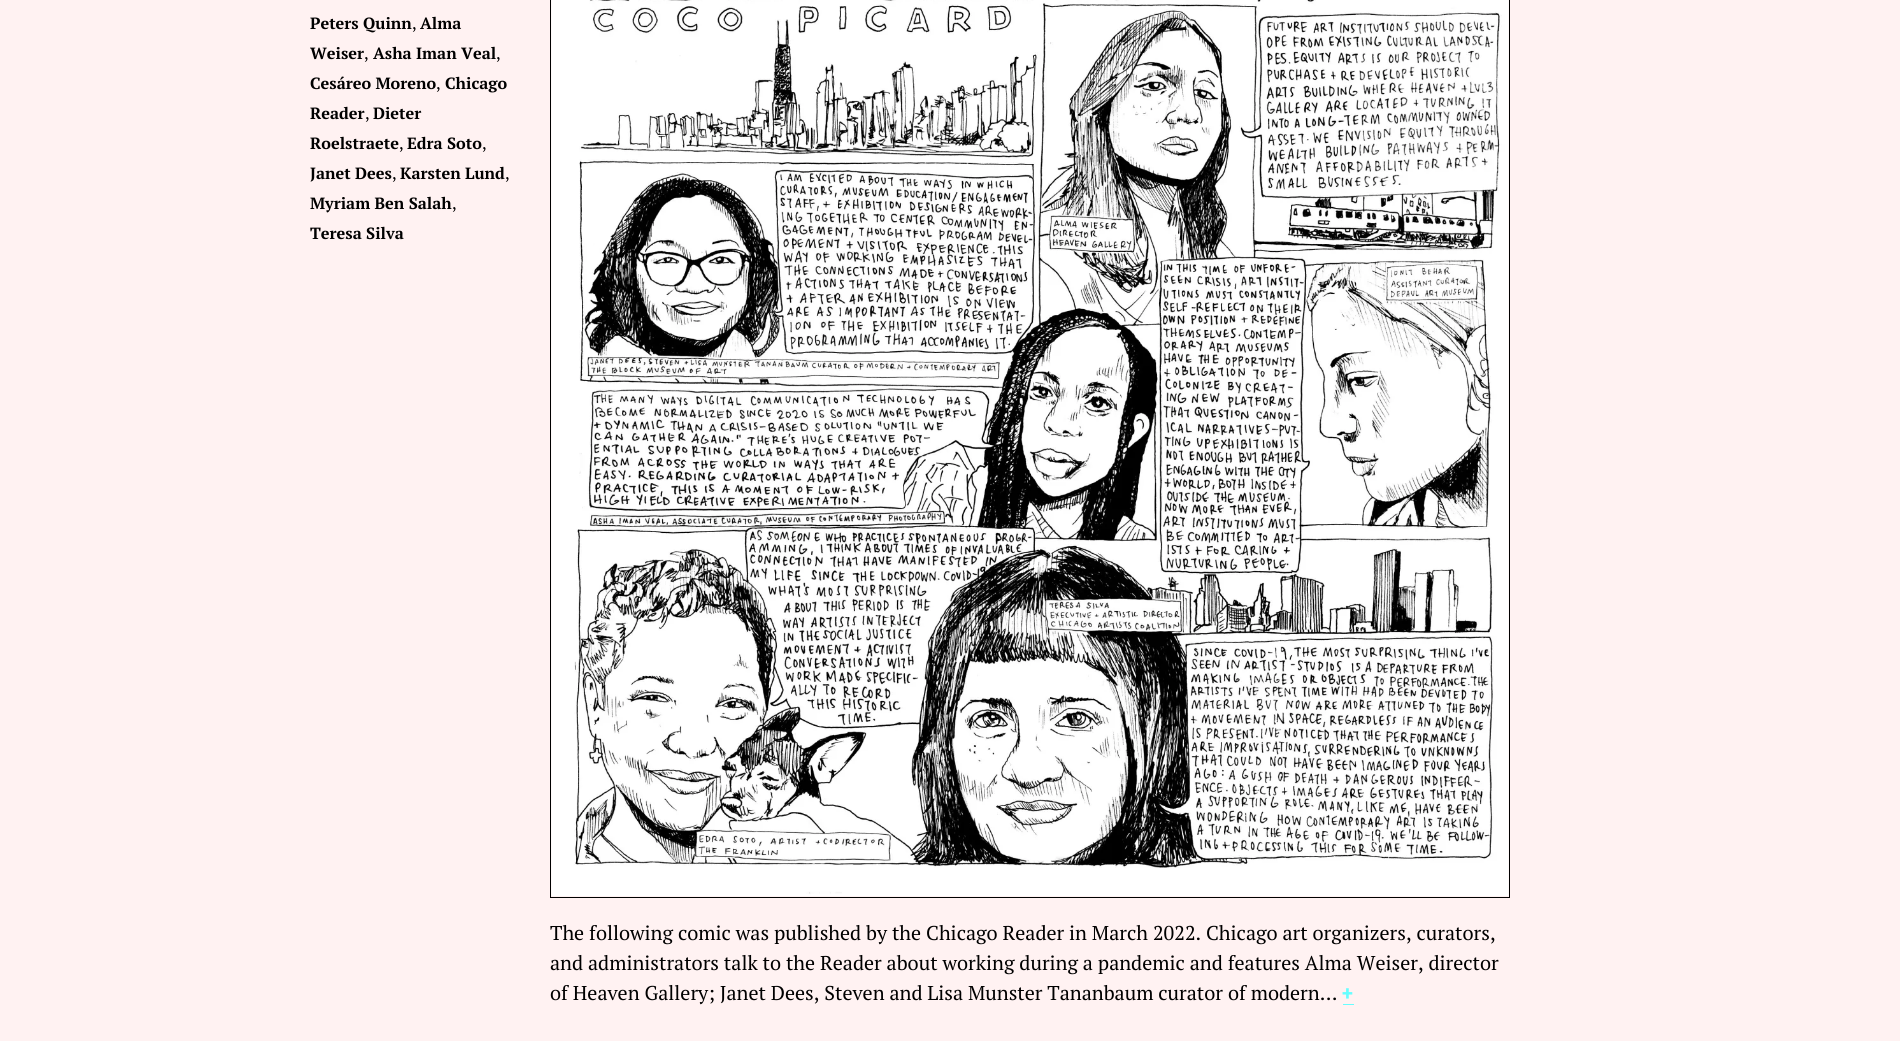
import math
import cairo


def use_color(cr, r, g, b):
  cr.set_source_rgb(r / 255, g / 255, b / 255)

def text(cr, x, y, s, family, size, color, bold=False, italic=False):
  cr.select_font_face(family, cairo.FONT_SLANT_ITALIC if italic else cairo.FONT_SLANT_NORMAL, cairo.FONT_WEIGHT_BOLD if bold else cairo.FONT_WEIGHT_NORMAL)
  cr.set_font_size(size)
  use_color(cr, *color)
  cr.move_to(x, y)
  cr.show_text(s)

def box(cr, x, y, w, h, *color):
  use_color(cr, *color)
  cr.rectangle(x, y, w, h)
  cr.fill()

def picture(cr, path, x, y, w, h):
  cr.save()
  cr.set_source_surface(cairo.ImageSurface.create_from_png(path), x, y)
  cr.rectangle(x, y, w, h)
  cr.fill()
  cr.restore()

def draw(cr):
  use_color(cr, 255, 242, 242)
  cr.paint()
  cr.rectangle(550.5, -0.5, 959, 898)
  use_color(cr, 0, 0, 0)
  cr.set_line_width(1)
  cr.stroke()
  picture(cr, "img_01.png", 551, 0, 958, 896)
  box(cr, 1343, 1004, 11, 1, 102, 254, 255)
  text(cr, 310, 29, "Peters Quinn", "PT Serif", 16.25, (0, 0, 0), bold=True)
  text(cr, 412, 29, ",", "PT Serif", 16.25, (0, 0, 0))
  text(cr, 420, 29, "Alma", "PT Serif", 16.25, (0, 0, 0), bold=True)
  text(cr, 310, 59, "Weiser", "PT Serif", 16.25, (0, 0, 0), bold=True)
  text(cr, 364, 59, ",", "PT Serif", 16.25, (0, 0, 0))
  text(cr, 373, 59, "Asha Iman Veal", "PT Serif", 16.25, (0, 0, 0), bold=True)
  text(cr, 496, 59, ",", "PT Serif", 16.25, (0, 0, 0))
  text(cr, 310, 89, "Cesáreo Moreno", "PT Serif", 16.25, (0, 0, 0), bold=True)
  text(cr, 436, 89, ",", "PT Serif", 16.25, (0, 0, 0))
  text(cr, 445, 89, "Chicago", "PT Serif", 16.25, (0, 0, 0), bold=True)
  text(cr, 310, 119, "Reader", "PT Serif", 16.25, (0, 0, 0), bold=True)
  text(cr, 365, 119, ",", "PT Serif", 16.25, (0, 0, 0))
  text(cr, 373, 119, "Dieter", "PT Serif", 16.25, (0, 0, 0), bold=True)
  text(cr, 310, 149, "Roelstraete", "PT Serif", 16.25, (0, 0, 0), bold=True)
  text(cr, 399, 149, ",", "PT Serif", 16.25, (0, 0, 0))
  text(cr, 407, 149, "Edra Soto", "PT Serif", 16.25, (0, 0, 0), bold=True)
  text(cr, 482, 149, ",", "PT Serif", 16.25, (0, 0, 0))
  text(cr, 310, 179, "Janet Dees", "PT Serif", 16.25, (0, 0, 0), bold=True)
  text(cr, 392, 179, ",", "PT Serif", 16.25, (0, 0, 0))
  text(cr, 400, 179, "Karsten Lund", "PT Serif", 16.25, (0, 0, 0), bold=True)
  text(cr, 505, 179, ",", "PT Serif", 16.25, (0, 0, 0))
  text(cr, 310, 209, "Myriam Ben Salah", "PT Serif", 16.25, (0, 0, 0), bold=True)
  text(cr, 452, 209, ",", "PT Serif", 16.25, (0, 0, 0))
  text(cr, 310, 239, "Teresa Silva", "PT Serif", 16.25, (0, 0, 0), bold=True)
  text(cr, 550, 940, "The following comic was published by the Chicago Reader in March 2022. Chicago art organizers, curators,", "PT Serif", 20, (0, 0, 0))
  text(cr, 550, 970, "and administrators talk to the Reader about working during a pandemic and features Alma Weiser, director", "PT Serif", 20, (0, 0, 0))
  text(cr, 550, 1000, "of Heaven Gallery; Janet Dees, Steven and Lisa Munster Tananbaum curator of modern…", "PT Serif", 20, (0, 0, 0))
  text(cr, 1342, 1000, "+", "Roboto", 20, (102, 254, 255), bold=True)


surface = cairo.ImageSurface(cairo.FORMAT_RGB24, 1900, 1041)
cr = cairo.Context(surface)
options = cairo.FontOptions()
options.set_hint_metrics(cairo.HINT_METRICS_OFF)
options.set_hint_style(cairo.HINT_STYLE_NONE)
cr.set_font_options(options)
cr.set_miter_limit(4)
draw(cr)
surface.write_to_png("out.png")
